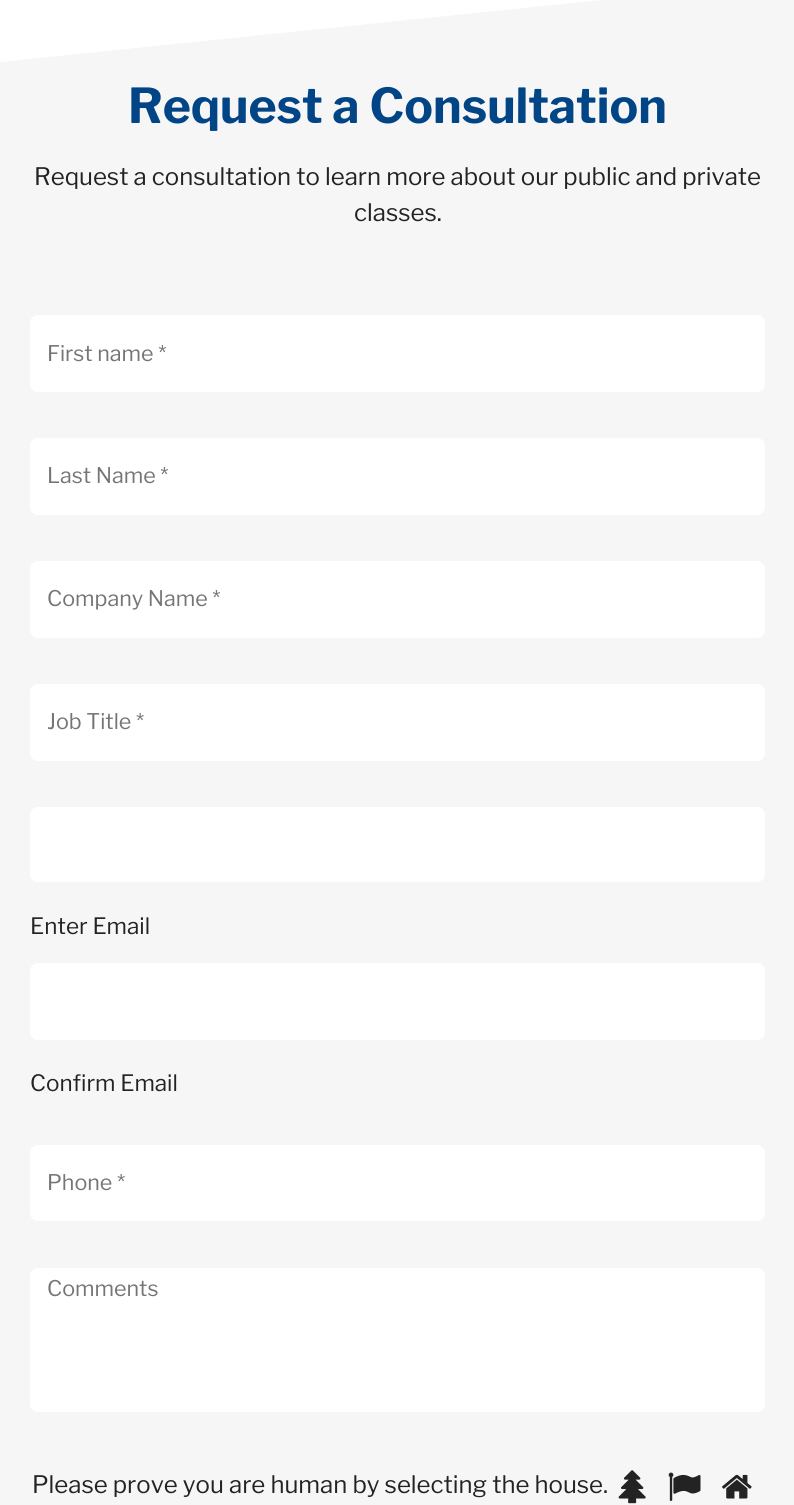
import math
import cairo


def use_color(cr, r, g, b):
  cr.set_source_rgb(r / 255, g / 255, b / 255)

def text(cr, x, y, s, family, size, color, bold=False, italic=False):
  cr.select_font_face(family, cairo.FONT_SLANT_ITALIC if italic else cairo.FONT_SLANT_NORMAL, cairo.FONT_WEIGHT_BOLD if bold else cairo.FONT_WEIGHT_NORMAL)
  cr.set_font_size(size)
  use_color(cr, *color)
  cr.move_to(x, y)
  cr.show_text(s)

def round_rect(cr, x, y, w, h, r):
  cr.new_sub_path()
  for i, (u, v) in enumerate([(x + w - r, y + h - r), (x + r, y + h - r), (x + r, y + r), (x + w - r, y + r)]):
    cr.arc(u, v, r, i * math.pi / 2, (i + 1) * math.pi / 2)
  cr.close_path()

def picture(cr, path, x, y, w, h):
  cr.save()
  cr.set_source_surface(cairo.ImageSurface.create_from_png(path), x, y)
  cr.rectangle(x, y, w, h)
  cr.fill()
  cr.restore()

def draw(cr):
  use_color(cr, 255, 255, 255)
  cr.paint()
  use_color(cr, 246, 246, 246)
  cr.new_path()
  cr.move_to(0, 62)
  cr.line_to(0, 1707)
  cr.line_to(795, 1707)
  cr.line_to(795, -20)
  cr.close_path()
  cr.fill()
  use_color(cr, 255, 255, 255)
  round_rect(cr, 30, 315, 735, 77, 8)
  cr.fill()
  round_rect(cr, 30, 438, 735, 77, 8)
  cr.fill()
  round_rect(cr, 30, 561, 735, 77, 8)
  cr.fill()
  round_rect(cr, 30, 684, 735, 77, 8)
  cr.fill()
  round_rect(cr, 30, 807, 735, 75, 8)
  cr.fill()
  round_rect(cr, 30, 963, 735, 77, 8)
  cr.fill()
  round_rect(cr, 30, 1145, 735, 76, 8)
  cr.fill()
  round_rect(cr, 30, 1268, 735, 144, 8)
  cr.fill()
  picture(cr, "img_01.png", 618, 1470, 28, 34)
  picture(cr, "img_02.png", 668, 1472, 33, 29)
  picture(cr, "img_03.png", 722, 1474, 30, 25)
  text(cr, 128, 123, "Request a Consultation", "Libre Franklin", 48, (1, 69, 134), bold=True)
  text(cr, 34, 185, "Request a consultation to learn more about our public and private", "Libre Franklin", 24, (35, 35, 35))
  text(cr, 354, 221, "classes.", "Libre Franklin", 24, (35, 35, 35))
  text(cr, 47, 361, "First name *", "Libre Franklin", 21.5, (117, 117, 117))
  text(cr, 47, 483, "Last Name *", "Libre Franklin", 21.5, (117, 117, 117))
  text(cr, 47, 606, "Company Name *", "Libre Franklin", 21.5, (117, 117, 117))
  text(cr, 47, 729, "Job Title *", "Libre Franklin", 21.5, (117, 117, 117))
  text(cr, 30, 934, "Enter Email", "Libre Franklin", 22.5, (35, 35, 35))
  text(cr, 30, 1091, "Confirm Email", "Libre Franklin", 22.5, (35, 35, 35))
  text(cr, 47, 1190, "Phone *", "Libre Franklin", 21.5, (117, 117, 117))
  text(cr, 47, 1296, "Comments", "Libre Franklin", 21.5, (117, 117, 117))
  text(cr, 32, 1493, "Please prove you are human by selecting the house.", "Libre Franklin", 24, (35, 35, 35))


surface = cairo.ImageSurface(cairo.FORMAT_RGB24, 794, 1505)
cr = cairo.Context(surface)
options = cairo.FontOptions()
options.set_hint_metrics(cairo.HINT_METRICS_OFF)
options.set_hint_style(cairo.HINT_STYLE_NONE)
cr.set_font_options(options)
cr.set_miter_limit(4)
draw(cr)
surface.write_to_png("out.png")
